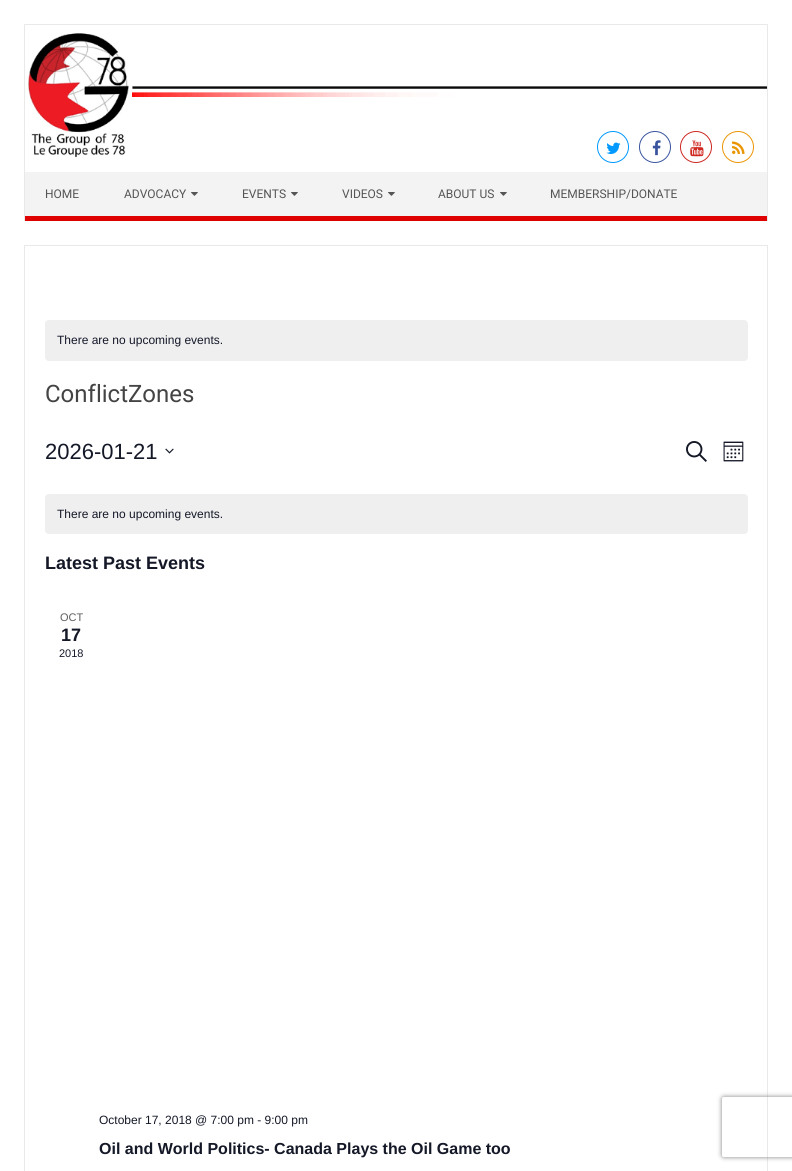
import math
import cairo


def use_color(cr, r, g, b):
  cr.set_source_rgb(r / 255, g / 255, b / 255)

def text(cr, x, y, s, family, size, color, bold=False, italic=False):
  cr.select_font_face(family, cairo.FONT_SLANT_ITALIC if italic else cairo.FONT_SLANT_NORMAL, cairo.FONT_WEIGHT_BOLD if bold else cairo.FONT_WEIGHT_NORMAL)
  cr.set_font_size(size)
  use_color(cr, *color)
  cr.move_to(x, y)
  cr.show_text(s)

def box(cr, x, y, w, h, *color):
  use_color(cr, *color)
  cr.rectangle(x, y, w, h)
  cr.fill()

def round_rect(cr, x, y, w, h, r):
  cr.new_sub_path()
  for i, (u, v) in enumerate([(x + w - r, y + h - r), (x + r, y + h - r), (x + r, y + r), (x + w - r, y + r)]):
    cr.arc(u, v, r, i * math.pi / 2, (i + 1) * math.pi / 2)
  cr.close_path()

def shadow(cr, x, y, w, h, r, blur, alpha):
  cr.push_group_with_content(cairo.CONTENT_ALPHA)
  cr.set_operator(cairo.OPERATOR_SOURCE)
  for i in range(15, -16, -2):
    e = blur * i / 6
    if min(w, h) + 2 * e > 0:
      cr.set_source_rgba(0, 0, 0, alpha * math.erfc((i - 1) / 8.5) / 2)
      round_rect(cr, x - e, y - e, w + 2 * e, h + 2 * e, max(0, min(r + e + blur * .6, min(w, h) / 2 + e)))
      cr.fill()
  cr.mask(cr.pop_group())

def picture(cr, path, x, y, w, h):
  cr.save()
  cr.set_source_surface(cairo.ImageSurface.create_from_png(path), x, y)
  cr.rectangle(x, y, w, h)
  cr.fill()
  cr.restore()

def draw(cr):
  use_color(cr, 255, 255, 255)
  cr.paint()
  box(cr, 24, 24, 744, 1, 233, 233, 233)
  box(cr, 767, 24, 1, 197, 233, 233, 233)
  box(cr, 24, 24, 1, 197, 233, 233, 233)
  picture(cr, "img_01.png", 25, 33, 742, 125)
  cr.arc(613, 147, 15.5, 0, 2 * math.pi)
  use_color(cr, 0, 153, 255)
  cr.set_line_width(1)
  cr.stroke()
  picture(cr, "img_02.png", 606, 142, 15, 12)
  cr.arc(655, 147, 15.5, 0, 2 * math.pi)
  use_color(cr, 57, 84, 159)
  cr.stroke()
  picture(cr, "img_03.png", 652, 140, 9, 16)
  cr.arc(696, 147, 15.5, 0, 2 * math.pi)
  use_color(cr, 206, 40, 33)
  cr.stroke()
  picture(cr, "img_04.png", 690, 140, 14, 17)
  cr.arc(738, 147, 15.5, 0, 2 * math.pi)
  use_color(cr, 234, 150, 4)
  cr.stroke()
  picture(cr, "img_05.png", 732, 141, 13, 13)
  box(cr, 25, 172, 742, 44, 243, 243, 243)
  box(cr, 25, 216, 742, 5, 223, 1, 1)
  picture(cr, "img_06.png", 191, 192, 7, 4)
  picture(cr, "img_06.png", 291, 192, 7, 4)
  picture(cr, "img_06.png", 388, 192, 7, 4)
  picture(cr, "img_06.png", 500, 192, 7, 4)
  cr.rectangle(24.5, 245.5, 743, 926)
  use_color(cr, 233, 233, 233)
  cr.stroke()
  use_color(cr, 239, 239, 240)
  round_rect(cr, 45, 320, 703, 41, 4)
  cr.fill()
  picture(cr, "img_07.png", 165, 448, 9, 6)
  picture(cr, "img_08.png", 686, 441, 21, 21)
  picture(cr, "img_09.png", 723, 441, 21, 21)
  round_rect(cr, 45, 494, 703, 40, 4)
  cr.fill()
  cr.save()
  cr.set_fill_rule(cairo.FILL_RULE_EVEN_ODD)
  cr.new_path()
  cr.move_to(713, 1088)
  cr.line_to(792, 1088)
  cr.line_to(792, 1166)
  cr.line_to(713, 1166)
  cr.close_path()
  cr.move_to(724, 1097)
  cr.line_to(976, 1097)
  cr.curve_to(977, 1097, 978, 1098, 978, 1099)
  cr.line_to(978, 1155)
  cr.curve_to(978, 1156, 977, 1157, 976, 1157)
  cr.line_to(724, 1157)
  cr.curve_to(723, 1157, 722, 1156, 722, 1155)
  cr.line_to(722, 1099)
  cr.curve_to(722, 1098, 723, 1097, 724, 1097)
  cr.close_path()
  cr.clip()
  use_color(cr, 128, 128, 128)
  shadow(cr, 722, 1097, 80, 60, 2, 2.5, 1)
  cr.restore()
  text(cr, 45, 198, "HOME", "Roboto", 12, (85, 85, 85))
  text(cr, 124, 198, "ADVOCACY", "Roboto", 12, (85, 85, 85))
  text(cr, 242, 198, "EVENTS", "Roboto", 12, (85, 85, 85))
  text(cr, 342, 198, "VIDEOS", "Roboto", 12, (85, 85, 85))
  text(cr, 438, 198, "ABOUT US", "Roboto", 12, (85, 85, 85))
  text(cr, 550, 198, "MEMBERSHIP/DONATE", "Roboto", 12, (85, 85, 85))
  text(cr, 57, 344, "There are no upcoming events.", "Liberation Sans", 12, (20, 24, 39))
  text(cr, 45, 402, "ConflictZones", "Roboto", 24, (68, 68, 68))
  text(cr, 45, 459, "2026-01-21", "Liberation Sans", 22, (20, 24, 39))
  text(cr, 57, 518, "There are no upcoming events.", "Liberation Sans", 12, (20, 24, 39))
  text(cr, 45, 569, "Latest Past Events", "Liberation Sans", 18, (20, 24, 39), bold=True)
  text(cr, 60, 621, "OCT", "Liberation Sans", 11, (93, 93, 93))
  text(cr, 61, 641, "17", "Liberation Sans", 18, (20, 24, 39), bold=True)
  text(cr, 59, 657, "2018", "Liberation Sans", 11, (20, 24, 39))
  text(cr, 99, 1124, "October 17, 2018 @ 7:00 pm - 9:00 pm", "Liberation Sans", 12, (20, 24, 39))
  text(cr, 99, 1154, "Oil and World Politics- Canada Plays the Oil Game too", "Liberation Sans", 16, (20, 24, 39), bold=True)


surface = cairo.ImageSurface(cairo.FORMAT_RGB24, 792, 1171)
cr = cairo.Context(surface)
options = cairo.FontOptions()
options.set_hint_metrics(cairo.HINT_METRICS_OFF)
options.set_hint_style(cairo.HINT_STYLE_NONE)
cr.set_font_options(options)
cr.set_miter_limit(4)
draw(cr)
surface.write_to_png("out.png")
